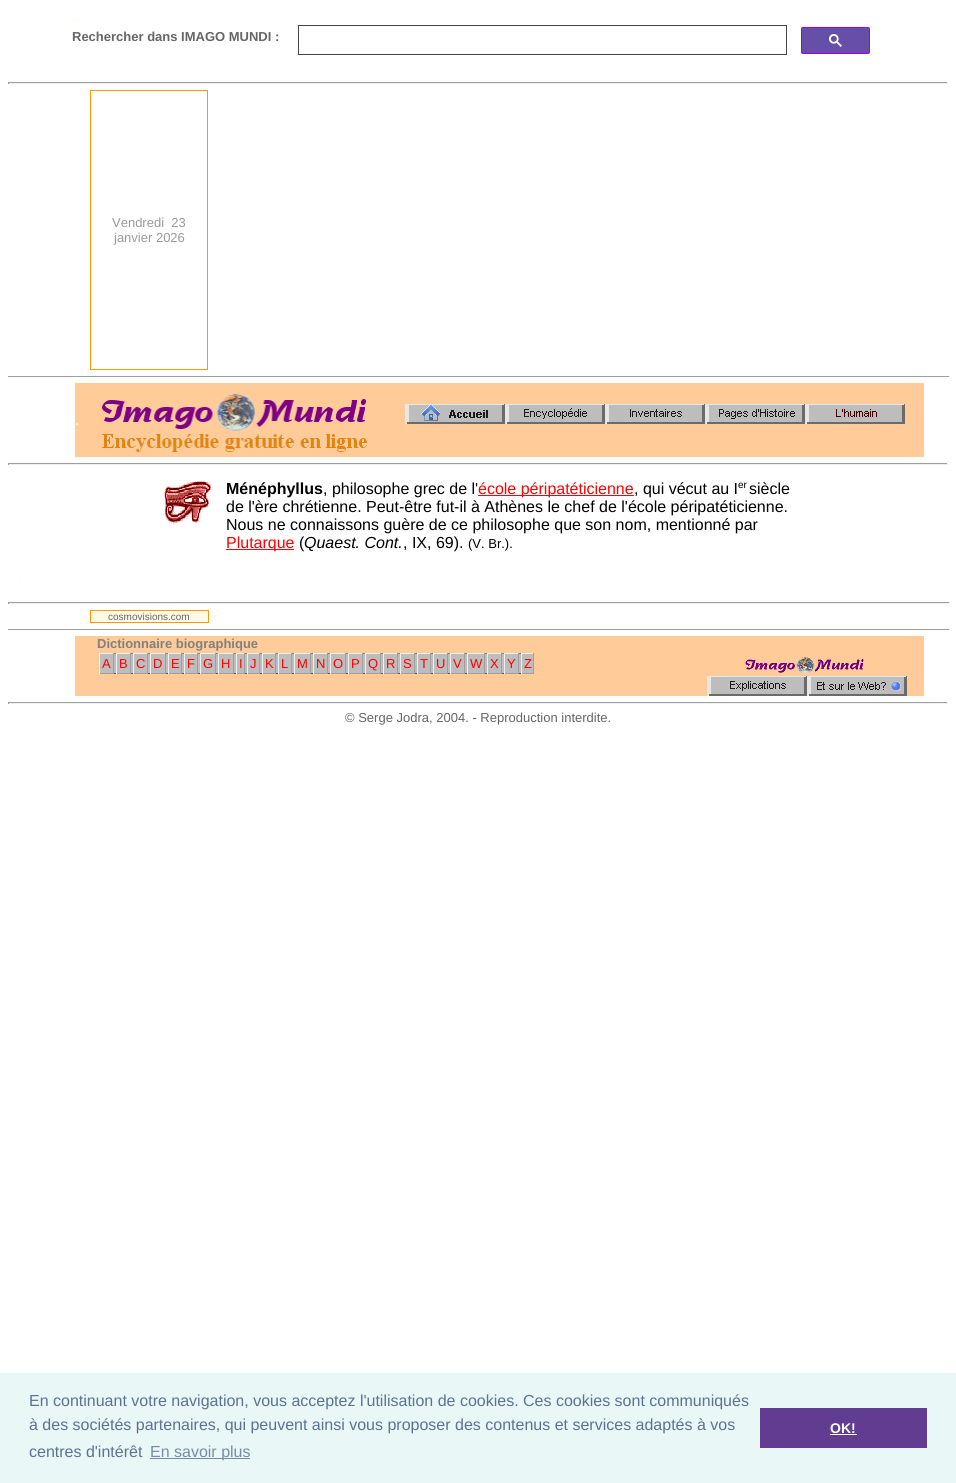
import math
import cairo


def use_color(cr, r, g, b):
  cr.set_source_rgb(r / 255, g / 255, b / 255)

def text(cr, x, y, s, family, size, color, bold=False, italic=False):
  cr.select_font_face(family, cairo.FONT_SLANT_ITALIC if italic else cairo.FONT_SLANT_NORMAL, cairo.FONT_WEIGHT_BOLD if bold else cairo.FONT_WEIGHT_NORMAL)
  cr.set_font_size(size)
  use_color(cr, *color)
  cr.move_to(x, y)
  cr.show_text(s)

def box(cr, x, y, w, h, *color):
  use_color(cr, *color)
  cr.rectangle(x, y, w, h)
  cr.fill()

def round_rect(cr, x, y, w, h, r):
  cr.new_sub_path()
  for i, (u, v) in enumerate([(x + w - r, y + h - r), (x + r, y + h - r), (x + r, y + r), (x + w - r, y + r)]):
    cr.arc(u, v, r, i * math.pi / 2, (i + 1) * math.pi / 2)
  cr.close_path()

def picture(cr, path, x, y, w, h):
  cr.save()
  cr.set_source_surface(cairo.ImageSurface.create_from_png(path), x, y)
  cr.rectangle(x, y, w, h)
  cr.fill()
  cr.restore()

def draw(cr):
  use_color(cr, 255, 255, 255)
  cr.paint()
  cr.rectangle(298.5, 25.5, 488, 29)
  use_color(cr, 68, 68, 68)
  cr.set_line_width(1)
  cr.stroke()
  use_color(cr, 103, 78, 167)
  round_rect(cr, 801.5, 27.5, 68, 26, 1.5)
  cr.fill_preserve()
  use_color(cr, 153, 0, 255)
  cr.stroke()
  picture(cr, "img_01.png", 829, 34, 13, 13)
  box(cr, 8, 82, 940, 1, 159, 159, 159)
  box(cr, 947, 82, 1, 2, 238, 238, 238)
  box(cr, 8, 83, 940, 1, 238, 238, 238)
  box(cr, 8, 82, 1, 2, 159, 159, 159)
  cr.rectangle(90.5, 90.5, 117, 279)
  use_color(cr, 255, 153, 0)
  cr.stroke()
  box(cr, 8, 376, 942, 1, 159, 159, 159)
  box(cr, 949, 376, 1, 1, 238, 238, 238)
  box(cr, 75, 383, 849, 74, 255, 204, 153)
  picture(cr, "img_02.png", 102, 394, 265, 58)
  picture(cr, "img_03.png", 405, 404, 100, 20)
  picture(cr, "img_04.png", 505, 404, 100, 20)
  picture(cr, "img_05.png", 605, 404, 100, 20)
  picture(cr, "img_06.png", 705, 404, 100, 20)
  picture(cr, "img_07.png", 805, 404, 100, 20)
  box(cr, 8, 463, 940, 1, 159, 159, 159)
  box(cr, 947, 463, 1, 2, 238, 238, 238)
  box(cr, 8, 464, 940, 1, 238, 238, 238)
  box(cr, 8, 463, 1, 2, 159, 159, 159)
  picture(cr, "img_08.png", 164, 481, 47, 43)
  box(cr, 478, 495, 156, 1, 255, 0, 0)
  box(cr, 226, 549, 68, 1, 255, 0, 0)
  box(cr, 8, 602, 942, 1, 159, 159, 159)
  box(cr, 949, 602, 1, 2, 238, 238, 238)
  box(cr, 8, 603, 942, 1, 238, 238, 238)
  box(cr, 8, 602, 1, 2, 159, 159, 159)
  use_color(cr, 254, 248, 230)
  cr.rectangle(90.5, 610.5, 118, 12)
  cr.fill_preserve()
  use_color(cr, 255, 153, 0)
  cr.stroke()
  box(cr, 8, 629, 942, 1, 159, 159, 159)
  box(cr, 949, 629, 1, 1, 238, 238, 238)
  box(cr, 75, 636, 849, 60, 255, 204, 153)
  box(cr, 114, 654, 407, 19, 189, 189, 189)
  box(cr, 114, 653, 407, 1, 128, 128, 128)
  box(cr, 114, 673, 407, 1, 85, 85, 85)
  box(cr, 100, 654, 13, 19, 189, 189, 189)
  box(cr, 99, 653, 15, 1, 238, 238, 238)
  box(cr, 113, 653, 1, 21, 159, 159, 159)
  box(cr, 99, 673, 15, 1, 159, 159, 159)
  box(cr, 99, 653, 1, 21, 238, 238, 238)
  box(cr, 116, 653, 15, 1, 238, 238, 238)
  box(cr, 130, 653, 1, 21, 159, 159, 159)
  box(cr, 116, 673, 15, 1, 159, 159, 159)
  box(cr, 116, 653, 1, 21, 238, 238, 238)
  box(cr, 133, 653, 15, 1, 238, 238, 238)
  box(cr, 147, 653, 1, 21, 159, 159, 159)
  box(cr, 133, 673, 15, 1, 159, 159, 159)
  box(cr, 133, 653, 1, 21, 238, 238, 238)
  box(cr, 150, 653, 16, 1, 238, 238, 238)
  box(cr, 165, 653, 1, 21, 159, 159, 159)
  box(cr, 150, 673, 16, 1, 159, 159, 159)
  box(cr, 150, 653, 1, 21, 238, 238, 238)
  box(cr, 168, 653, 14, 1, 238, 238, 238)
  box(cr, 181, 653, 1, 21, 159, 159, 159)
  box(cr, 168, 673, 14, 1, 159, 159, 159)
  box(cr, 168, 653, 1, 21, 238, 238, 238)
  box(cr, 184, 653, 14, 1, 238, 238, 238)
  box(cr, 197, 653, 1, 21, 159, 159, 159)
  box(cr, 184, 673, 14, 1, 159, 159, 159)
  box(cr, 184, 653, 1, 21, 238, 238, 238)
  box(cr, 200, 653, 16, 1, 238, 238, 238)
  box(cr, 215, 653, 1, 21, 159, 159, 159)
  box(cr, 200, 673, 16, 1, 159, 159, 159)
  box(cr, 200, 653, 1, 21, 238, 238, 238)
  box(cr, 218, 653, 16, 1, 238, 238, 238)
  box(cr, 233, 653, 1, 21, 159, 159, 159)
  box(cr, 218, 673, 16, 1, 159, 159, 159)
  box(cr, 218, 653, 1, 21, 238, 238, 238)
  box(cr, 236, 653, 9, 1, 238, 238, 238)
  box(cr, 244, 653, 1, 21, 159, 159, 159)
  box(cr, 236, 673, 9, 1, 159, 159, 159)
  box(cr, 236, 653, 1, 21, 238, 238, 238)
  box(cr, 247, 653, 13, 1, 238, 238, 238)
  box(cr, 259, 653, 1, 21, 159, 159, 159)
  box(cr, 247, 673, 13, 1, 159, 159, 159)
  box(cr, 247, 653, 1, 21, 238, 238, 238)
  box(cr, 262, 653, 14, 1, 238, 238, 238)
  box(cr, 275, 653, 1, 21, 159, 159, 159)
  box(cr, 262, 673, 14, 1, 159, 159, 159)
  box(cr, 262, 653, 1, 21, 238, 238, 238)
  box(cr, 278, 653, 14, 1, 238, 238, 238)
  box(cr, 291, 653, 1, 21, 159, 159, 159)
  box(cr, 278, 673, 14, 1, 159, 159, 159)
  box(cr, 278, 653, 1, 21, 238, 238, 238)
  box(cr, 294, 653, 17, 1, 238, 238, 238)
  box(cr, 310, 653, 1, 21, 159, 159, 159)
  box(cr, 294, 673, 17, 1, 159, 159, 159)
  box(cr, 294, 653, 1, 21, 238, 238, 238)
  box(cr, 313, 653, 15, 1, 238, 238, 238)
  box(cr, 327, 653, 1, 21, 159, 159, 159)
  box(cr, 313, 673, 15, 1, 159, 159, 159)
  box(cr, 313, 653, 1, 21, 238, 238, 238)
  box(cr, 330, 653, 16, 1, 238, 238, 238)
  box(cr, 345, 653, 1, 21, 159, 159, 159)
  box(cr, 330, 673, 16, 1, 159, 159, 159)
  box(cr, 330, 653, 1, 21, 238, 238, 238)
  box(cr, 348, 653, 15, 1, 238, 238, 238)
  box(cr, 362, 653, 1, 21, 159, 159, 159)
  box(cr, 348, 673, 15, 1, 159, 159, 159)
  box(cr, 348, 653, 1, 21, 238, 238, 238)
  box(cr, 365, 653, 16, 1, 238, 238, 238)
  box(cr, 380, 653, 1, 21, 159, 159, 159)
  box(cr, 365, 673, 16, 1, 159, 159, 159)
  box(cr, 365, 653, 1, 21, 238, 238, 238)
  box(cr, 383, 653, 15, 1, 238, 238, 238)
  box(cr, 397, 653, 1, 21, 159, 159, 159)
  box(cr, 383, 673, 15, 1, 159, 159, 159)
  box(cr, 383, 653, 1, 21, 238, 238, 238)
  box(cr, 400, 653, 15, 1, 238, 238, 238)
  box(cr, 414, 653, 1, 21, 159, 159, 159)
  box(cr, 400, 673, 15, 1, 159, 159, 159)
  box(cr, 400, 653, 1, 21, 238, 238, 238)
  box(cr, 417, 653, 14, 1, 238, 238, 238)
  box(cr, 430, 653, 1, 21, 159, 159, 159)
  box(cr, 417, 673, 14, 1, 159, 159, 159)
  box(cr, 417, 653, 1, 21, 238, 238, 238)
  box(cr, 433, 653, 15, 1, 238, 238, 238)
  box(cr, 447, 653, 1, 21, 159, 159, 159)
  box(cr, 433, 673, 15, 1, 159, 159, 159)
  box(cr, 433, 653, 1, 21, 238, 238, 238)
  box(cr, 450, 653, 15, 1, 238, 238, 238)
  box(cr, 464, 653, 1, 21, 159, 159, 159)
  box(cr, 450, 673, 15, 1, 159, 159, 159)
  box(cr, 450, 653, 1, 21, 238, 238, 238)
  box(cr, 467, 653, 18, 1, 238, 238, 238)
  box(cr, 484, 653, 1, 21, 159, 159, 159)
  box(cr, 467, 673, 18, 1, 159, 159, 159)
  box(cr, 467, 653, 1, 21, 238, 238, 238)
  box(cr, 487, 653, 15, 1, 238, 238, 238)
  box(cr, 501, 653, 1, 21, 159, 159, 159)
  box(cr, 487, 673, 15, 1, 159, 159, 159)
  box(cr, 487, 653, 1, 21, 238, 238, 238)
  box(cr, 504, 653, 15, 1, 238, 238, 238)
  box(cr, 518, 653, 1, 21, 159, 159, 159)
  box(cr, 504, 673, 15, 1, 159, 159, 159)
  box(cr, 504, 653, 1, 21, 238, 238, 238)
  box(cr, 522, 654, 11, 19, 189, 189, 189)
  box(cr, 521, 653, 13, 1, 238, 238, 238)
  box(cr, 533, 653, 1, 21, 159, 159, 159)
  box(cr, 521, 673, 13, 1, 159, 159, 159)
  box(cr, 521, 653, 1, 21, 238, 238, 238)
  picture(cr, "img_09.png", 745, 657, 119, 16)
  picture(cr, "img_10.png", 707, 676, 100, 20)
  picture(cr, "img_11.png", 807, 676, 100, 20)
  box(cr, 8, 702, 940, 1, 159, 159, 159)
  box(cr, 947, 702, 1, 2, 238, 238, 238)
  box(cr, 8, 703, 940, 1, 238, 238, 238)
  box(cr, 8, 702, 1, 2, 159, 159, 159)
  box(cr, 0, 1373, 956, 110, 234, 247, 247)
  box(cr, 150, 1458, 100, 1, 120, 141, 165)
  box(cr, 760, 1408, 167, 40, 98, 60, 145)
  box(cr, 830, 1434, 27, 1, 255, 255, 255)
  text(cr, 72, 25, "-", "Liberation Sans", 16, (255, 255, 204))
  text(cr, 72, 41, "Rechercher dans IMAGO MUNDI :", "Liberation Sans", 13, (102, 102, 102), bold=True)
  text(cr, 112, 227, "Vendredi  23", "Liberation Sans", 13, (153, 153, 153))
  text(cr, 114, 242, "janvier 2026", "Liberation Sans", 13, (153, 153, 153))
  text(cr, 75, 425, ".", "Liberation Sans", 16, (255, 255, 204))
  text(cr, 226, 494, "Ménéphyllus", "Liberation Sans", 16, (0, 0, 0), bold=True)
  text(cr, 323, 494, ", philosophe grec de l'", "Liberation Sans", 16, (0, 0, 0))
  text(cr, 478, 494, "école péripatéticienne", "Liberation Sans", 16, (255, 0, 0))
  text(cr, 634, 494, ", qui vécut au I", "Liberation Sans", 16, (0, 0, 0))
  text(cr, 738, 488, "er", "Liberation Sans", 10, (0, 0, 0))
  text(cr, 749, 494, "siècle", "Liberation Sans", 16, (0, 0, 0))
  text(cr, 226, 512, "de l'ère chrétienne. Peut-être fut-il à Athènes le chef de l'école péripatéticienne.", "Liberation Sans", 16, (0, 0, 0))
  text(cr, 226, 530, "Nous ne connaissons guère de ce philosophe que son nom, mentionné par", "Liberation Sans", 16, (0, 0, 0))
  text(cr, 226, 548, "Plutarque", "Liberation Sans", 16, (255, 0, 0))
  text(cr, 299, 548, "(", "Liberation Sans", 16, (0, 0, 0))
  text(cr, 304, 548, "Quaest. Cont.", "Liberation Sans", 16, (0, 0, 0), italic=True)
  text(cr, 403, 548, ", IX, 69).", "Liberation Sans", 16, (0, 0, 0))
  text(cr, 468, 548, "(V. Br.).", "Liberation Sans", 13, (0, 0, 0))
  text(cr, 17, 583, ".", "Liberation Sans", 16, (255, 255, 204))
  text(cr, 108, 620, "cosmovisions.com", "Liberation Sans", 10, (102, 102, 102))
  text(cr, 97, 648, "Dictionnaire biographique", "Liberation Sans", 13, (128, 128, 128), bold=True)
  text(cr, 102, 668, "A", "Liberation Sans", 13, (255, 0, 0))
  text(cr, 119, 668, "B", "Liberation Sans", 13, (255, 0, 0))
  text(cr, 136, 668, "C", "Liberation Sans", 13, (255, 0, 0))
  text(cr, 153, 668, "D", "Liberation Sans", 13, (255, 0, 0))
  text(cr, 171, 668, "E", "Liberation Sans", 13, (255, 0, 0))
  text(cr, 187, 668, "F", "Liberation Sans", 13, (255, 0, 0))
  text(cr, 203, 668, "G", "Liberation Sans", 13, (255, 0, 0))
  text(cr, 221, 668, "H", "Liberation Sans", 13, (255, 0, 0))
  text(cr, 239, 668, "I", "Liberation Sans", 13, (255, 0, 0))
  text(cr, 250, 668, "J", "Liberation Sans", 13, (255, 0, 0))
  text(cr, 265, 668, "K", "Liberation Sans", 13, (255, 0, 0))
  text(cr, 281, 668, "L", "Liberation Sans", 13, (255, 0, 0))
  text(cr, 297, 668, "M", "Liberation Sans", 13, (255, 0, 0))
  text(cr, 316, 668, "N", "Liberation Sans", 13, (255, 0, 0))
  text(cr, 333, 668, "O", "Liberation Sans", 13, (255, 0, 0))
  text(cr, 351, 668, "P", "Liberation Sans", 13, (255, 0, 0))
  text(cr, 368, 668, "Q", "Liberation Sans", 13, (255, 0, 0))
  text(cr, 386, 668, "R", "Liberation Sans", 13, (255, 0, 0))
  text(cr, 403, 668, "S", "Liberation Sans", 13, (255, 0, 0))
  text(cr, 420, 668, "T", "Liberation Sans", 13, (255, 0, 0))
  text(cr, 436, 668, "U", "Liberation Sans", 13, (255, 0, 0))
  text(cr, 453, 668, "V", "Liberation Sans", 13, (255, 0, 0))
  text(cr, 470, 668, "W", "Liberation Sans", 13, (255, 0, 0))
  text(cr, 490, 668, "X", "Liberation Sans", 13, (255, 0, 0))
  text(cr, 507, 668, "Y", "Liberation Sans", 13, (255, 0, 0))
  text(cr, 524, 668, "Z", "Liberation Sans", 13, (255, 0, 0))
  text(cr, 345, 722, "© Serge Jodra, 2004. - Reproduction interdite.", "Liberation Sans", 13, (102, 102, 102))
  text(cr, 29, 1406, "En continuant votre navigation, vous acceptez l'utilisation de cookies. Ces cookies sont communiqués", "Liberation Sans", 16, (92, 114, 145))
  text(cr, 29, 1430, "à des sociétés partenaires, qui peuvent ainsi vous proposer des contenus et services adaptés à vos", "Liberation Sans", 16, (92, 114, 145))
  text(cr, 29, 1457, "centres d'intérêt", "Liberation Sans", 16, (92, 114, 145))
  text(cr, 150, 1457, "En savoir plus", "Liberation Sans", 16, (120, 141, 165))
  text(cr, 830, 1433, "OK!", "Liberation Sans", 14, (255, 255, 255), bold=True)


surface = cairo.ImageSurface(cairo.FORMAT_RGB24, 956, 1483)
cr = cairo.Context(surface)
options = cairo.FontOptions()
options.set_hint_metrics(cairo.HINT_METRICS_OFF)
options.set_hint_style(cairo.HINT_STYLE_NONE)
cr.set_font_options(options)
cr.set_miter_limit(4)
draw(cr)
surface.write_to_png("out.png")
